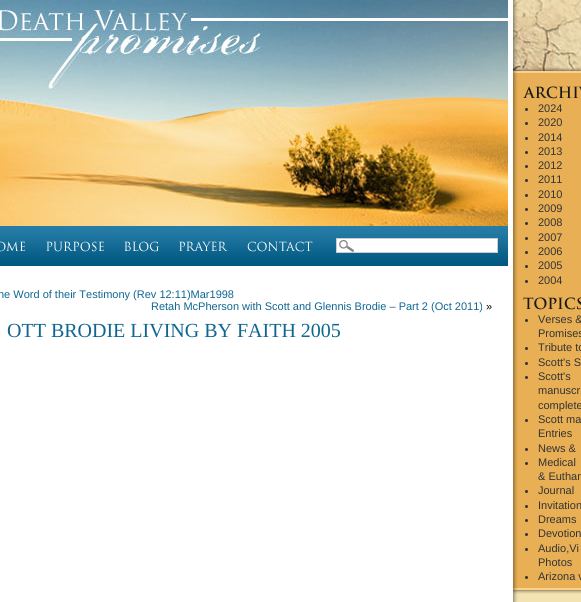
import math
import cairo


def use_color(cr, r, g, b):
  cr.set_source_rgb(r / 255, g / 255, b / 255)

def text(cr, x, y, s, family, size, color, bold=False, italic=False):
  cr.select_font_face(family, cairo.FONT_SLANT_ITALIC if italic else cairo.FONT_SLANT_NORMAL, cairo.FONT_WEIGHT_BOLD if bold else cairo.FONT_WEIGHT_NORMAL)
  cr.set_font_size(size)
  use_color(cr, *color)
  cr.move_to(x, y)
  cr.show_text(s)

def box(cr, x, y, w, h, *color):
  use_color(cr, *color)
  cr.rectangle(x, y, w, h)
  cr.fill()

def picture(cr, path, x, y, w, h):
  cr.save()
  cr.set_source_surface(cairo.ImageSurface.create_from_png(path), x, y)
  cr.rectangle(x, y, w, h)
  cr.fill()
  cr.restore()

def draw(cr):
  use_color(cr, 243, 226, 178)
  cr.paint()
  picture(cr, "img_01.png", 0, 0, 518, 602)
  picture(cr, "img_02.png", 0, 0, 508, 226)
  picture(cr, "img_03.png", 0, 226, 508, 40)
  picture(cr, "img_04.png", 0, 241, 26, 11)
  picture(cr, "img_05.png", 45, 241, 60, 11)
  picture(cr, "img_06.png", 123, 241, 37, 11)
  picture(cr, "img_07.png", 178, 241, 51, 10)
  picture(cr, "img_08.png", 247, 241, 66, 11)
  box(cr, 337, 239, 160, 13, 255, 255, 255)
  picture(cr, "img_09.png", 339, 240, 15, 12)
  cr.rectangle(336.5, 238.5, 161, 14)
  use_color(cr, 204, 204, 204)
  cr.set_line_width(1)
  cr.stroke()
  picture(cr, "img_10.png", 513, 0, 68, 86)
  picture(cr, "img_11.png", 513, 86, 68, 502)
  picture(cr, "img_12.png", 513, 588, 68, 6)
  picture(cr, "img_13.png", 523, 86, 58, 13)
  use_color(cr, 51, 51, 51)
  cr.arc(526.5, 109.5, 1.5, 0, 2 * math.pi)
  cr.fill()
  cr.arc(526.5, 123.5, 1.5, 0, 2 * math.pi)
  cr.fill()
  cr.arc(526.5, 138.5, 1.5, 0, 2 * math.pi)
  cr.fill()
  cr.arc(526.5, 152.5, 1.5, 0, 2 * math.pi)
  cr.fill()
  cr.arc(526.5, 166.5, 1.5, 0, 2 * math.pi)
  cr.fill()
  cr.arc(526.5, 180.5, 1.5, 0, 2 * math.pi)
  cr.fill()
  cr.arc(526.5, 195.5, 1.5, 0, 2 * math.pi)
  cr.fill()
  cr.arc(526.5, 209.5, 1.5, 0, 2 * math.pi)
  cr.fill()
  cr.arc(526.5, 223.5, 1.5, 0, 2 * math.pi)
  cr.fill()
  cr.arc(526.5, 238.5, 1.5, 0, 2 * math.pi)
  cr.fill()
  cr.arc(526.5, 252.5, 1.5, 0, 2 * math.pi)
  cr.fill()
  cr.arc(526.5, 266.5, 1.5, 0, 2 * math.pi)
  cr.fill()
  cr.arc(526.5, 281.5, 1.5, 0, 2 * math.pi)
  cr.fill()
  picture(cr, "img_14.png", 523, 297, 58, 13)
  cr.arc(526.5, 320.5, 1.5, 0, 2 * math.pi)
  cr.fill()
  cr.arc(526.5, 348.5, 1.5, 0, 2 * math.pi)
  cr.fill()
  cr.arc(526.5, 363.5, 1.5, 0, 2 * math.pi)
  cr.fill()
  cr.arc(526.5, 377.5, 1.5, 0, 2 * math.pi)
  cr.fill()
  cr.arc(526.5, 420.5, 1.5, 0, 2 * math.pi)
  cr.fill()
  cr.arc(526.5, 449.5, 1.5, 0, 2 * math.pi)
  cr.fill()
  cr.arc(526.5, 463.5, 1.5, 0, 2 * math.pi)
  cr.fill()
  cr.arc(526.5, 491.5, 1.5, 0, 2 * math.pi)
  cr.fill()
  cr.arc(526.5, 506.5, 1.5, 0, 2 * math.pi)
  cr.fill()
  cr.arc(526.5, 520.5, 1.5, 0, 2 * math.pi)
  cr.fill()
  cr.arc(526.5, 534.5, 1.5, 0, 2 * math.pi)
  cr.fill()
  cr.arc(526.5, 549.5, 1.5, 0, 2 * math.pi)
  cr.fill()
  cr.arc(526.5, 577.5, 1.5, 0, 2 * math.pi)
  cr.fill()
  text(cr, -2, 298, "he Word of their Testimony (Rev 12:11)Mar1998", "Liberation Sans", 11, (15, 102, 144))
  text(cr, 151, 310, "Retah McPherson with Scott and Glennis Brodie – Part 2 (Oct 2011)", "Liberation Sans", 11, (15, 102, 144))
  text(cr, 486, 310, "»", "Liberation Sans", 11, (0, 0, 0))
  text(cr, 7, 337, "OTT BRODIE LIVING BY FAITH 2005", "Liberation Serif", 20, (15, 102, 144))
  text(cr, 538, 112, "2024", "Liberation Sans", 11, (51, 51, 51))
  text(cr, 538, 126, "2020", "Liberation Sans", 11, (51, 51, 51))
  text(cr, 538, 141, "2014", "Liberation Sans", 11, (51, 51, 51))
  text(cr, 538, 155, "2013", "Liberation Sans", 11, (51, 51, 51))
  text(cr, 538, 169, "2012", "Liberation Sans", 11, (51, 51, 51))
  text(cr, 538, 183, "2011", "Liberation Sans", 11, (51, 51, 51))
  text(cr, 538, 198, "2010", "Liberation Sans", 11, (51, 51, 51))
  text(cr, 538, 212, "2009", "Liberation Sans", 11, (51, 51, 51))
  text(cr, 538, 226, "2008", "Liberation Sans", 11, (51, 51, 51))
  text(cr, 538, 241, "2007", "Liberation Sans", 11, (51, 51, 51))
  text(cr, 538, 255, "2006", "Liberation Sans", 11, (51, 51, 51))
  text(cr, 538, 269, "2005", "Liberation Sans", 11, (51, 51, 51))
  text(cr, 538, 284, "2004", "Liberation Sans", 11, (51, 51, 51))
  text(cr, 538, 323, "Verses &", "Liberation Sans", 11, (51, 51, 51))
  text(cr, 538, 337, "Promises", "Liberation Sans", 11, (51, 51, 51))
  text(cr, 538, 351, "Tribute to", "Liberation Sans", 11, (51, 51, 51))
  text(cr, 538, 366, "Scott's S", "Liberation Sans", 11, (51, 51, 51))
  text(cr, 538, 380, "Scott's", "Liberation Sans", 11, (51, 51, 51))
  text(cr, 538, 394, "manuscri", "Liberation Sans", 11, (51, 51, 51))
  text(cr, 538, 409, "complete", "Liberation Sans", 11, (51, 51, 51))
  text(cr, 538, 423, "Scott ma", "Liberation Sans", 11, (51, 51, 51))
  text(cr, 538, 437, "Entries", "Liberation Sans", 11, (51, 51, 51))
  text(cr, 538, 452, "News &", "Liberation Sans", 11, (51, 51, 51))
  text(cr, 538, 466, "Medical", "Liberation Sans", 11, (51, 51, 51))
  text(cr, 538, 480, "& Euthan", "Liberation Sans", 11, (51, 51, 51))
  text(cr, 538, 494, "Journal", "Liberation Sans", 11, (51, 51, 51))
  text(cr, 538, 509, "Invitation", "Liberation Sans", 11, (51, 51, 51))
  text(cr, 538, 523, "Dreams", "Liberation Sans", 11, (51, 51, 51))
  text(cr, 538, 537, "Devotion", "Liberation Sans", 11, (51, 51, 51))
  text(cr, 538, 552, "Audio,Vi", "Liberation Sans", 11, (51, 51, 51))
  text(cr, 538, 566, "Photos", "Liberation Sans", 11, (51, 51, 51))
  text(cr, 538, 580, "Arizona v", "Liberation Sans", 11, (51, 51, 51))


surface = cairo.ImageSurface(cairo.FORMAT_RGB24, 581, 602)
cr = cairo.Context(surface)
options = cairo.FontOptions()
options.set_hint_metrics(cairo.HINT_METRICS_OFF)
options.set_hint_style(cairo.HINT_STYLE_NONE)
cr.set_font_options(options)
cr.set_miter_limit(4)
draw(cr)
surface.write_to_png("out.png")
